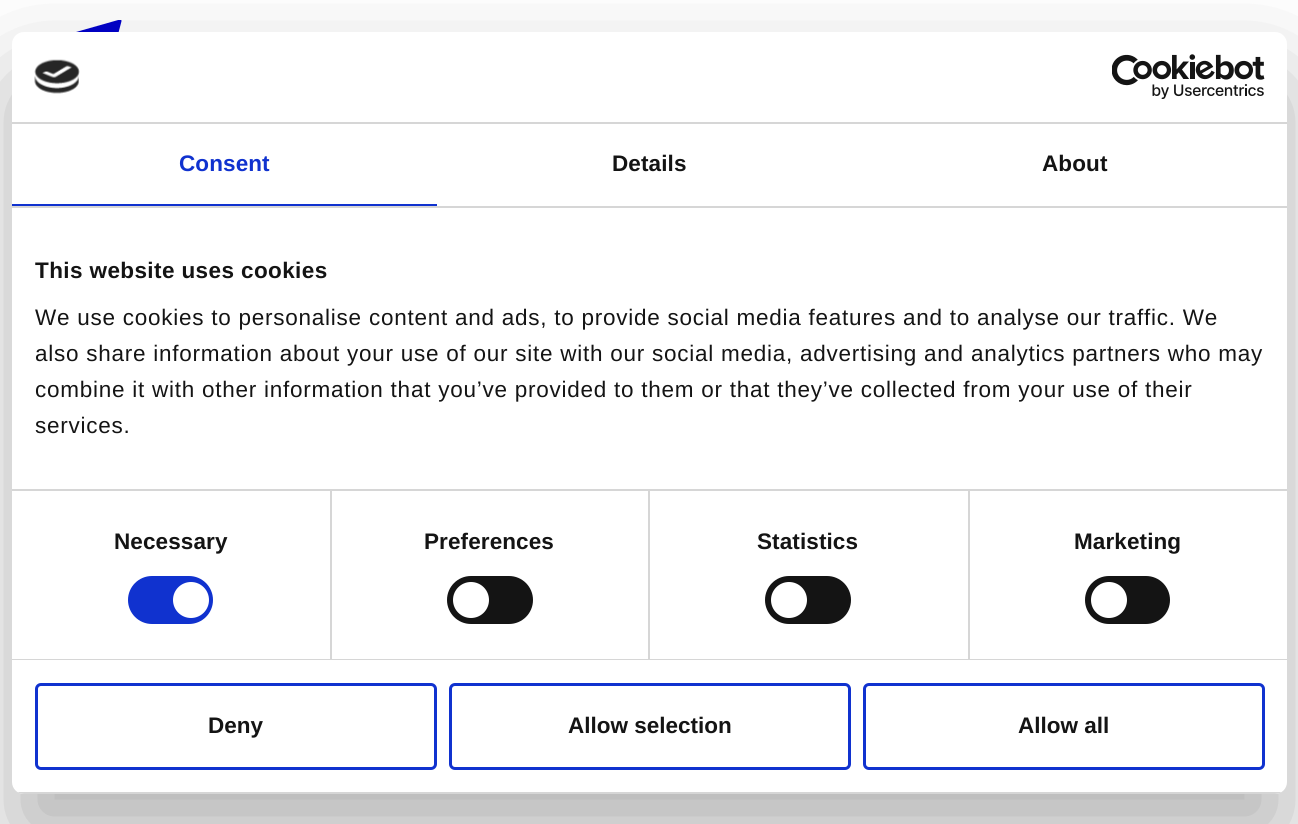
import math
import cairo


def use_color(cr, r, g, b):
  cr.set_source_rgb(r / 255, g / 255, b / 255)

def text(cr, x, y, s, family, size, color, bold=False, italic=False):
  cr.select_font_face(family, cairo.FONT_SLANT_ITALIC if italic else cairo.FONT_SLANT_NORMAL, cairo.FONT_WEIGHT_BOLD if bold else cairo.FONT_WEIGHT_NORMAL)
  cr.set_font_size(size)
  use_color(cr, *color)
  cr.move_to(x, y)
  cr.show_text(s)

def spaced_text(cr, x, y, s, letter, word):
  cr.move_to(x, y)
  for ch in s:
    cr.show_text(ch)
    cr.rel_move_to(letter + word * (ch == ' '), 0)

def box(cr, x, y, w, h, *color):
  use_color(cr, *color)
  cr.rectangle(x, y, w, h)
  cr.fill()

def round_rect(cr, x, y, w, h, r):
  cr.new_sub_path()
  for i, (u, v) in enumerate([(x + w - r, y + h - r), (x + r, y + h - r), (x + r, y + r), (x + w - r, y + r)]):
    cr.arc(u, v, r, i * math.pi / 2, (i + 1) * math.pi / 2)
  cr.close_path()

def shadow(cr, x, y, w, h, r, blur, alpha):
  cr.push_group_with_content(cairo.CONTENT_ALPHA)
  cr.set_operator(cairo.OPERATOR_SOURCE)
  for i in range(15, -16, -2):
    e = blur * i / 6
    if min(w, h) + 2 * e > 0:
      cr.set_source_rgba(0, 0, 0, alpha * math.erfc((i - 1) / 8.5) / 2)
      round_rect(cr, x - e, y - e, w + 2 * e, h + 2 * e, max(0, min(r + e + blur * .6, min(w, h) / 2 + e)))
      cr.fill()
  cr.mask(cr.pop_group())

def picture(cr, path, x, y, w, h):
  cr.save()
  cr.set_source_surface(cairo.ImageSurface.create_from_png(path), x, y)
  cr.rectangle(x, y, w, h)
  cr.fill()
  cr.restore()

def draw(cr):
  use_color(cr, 255, 255, 255)
  cr.paint()
  picture(cr, "img_01.png", 76, 20, 46, 12)
  use_color(cr, 0, 0, 0)
  shadow(cr, 12, 80, 1275, 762, 12, 51, 0.3)
  use_color(cr, 255, 255, 255)
  round_rect(cr, 12, 32, 1275, 762, 12)
  cr.fill()
  box(cr, 12, 122, 1275, 2, 214, 214, 214)
  picture(cr, "img_02.png", 34, 59, 46, 35)
  picture(cr, "img_03.png", 1112, 54, 153, 45)
  box(cr, 12, 206, 1275, 2, 214, 214, 214)
  box(cr, 12, 204, 425, 2, 16, 50, 207)
  box(cr, 12, 489, 1275, 2, 214, 214, 214)
  box(cr, 12, 659, 1275, 1, 214, 214, 214)
  box(cr, 330, 491, 2, 168, 214, 214, 214)
  use_color(cr, 16, 50, 207)
  round_rect(cr, 128, 576, 85, 48, 24)
  cr.fill()
  use_color(cr, 255, 255, 255)
  cr.arc(191, 600, 18, 0, 2 * math.pi)
  cr.fill()
  box(cr, 648, 491, 2, 168, 214, 214, 214)
  use_color(cr, 20, 20, 20)
  round_rect(cr, 447, 576, 86, 48, 24)
  cr.fill()
  use_color(cr, 255, 255, 255)
  cr.arc(471, 600, 18, 0, 2 * math.pi)
  cr.fill()
  box(cr, 968, 491, 2, 168, 214, 214, 214)
  use_color(cr, 20, 20, 20)
  round_rect(cr, 765, 576, 86, 48, 24)
  cr.fill()
  use_color(cr, 255, 255, 255)
  cr.arc(789, 600, 18, 0, 2 * math.pi)
  cr.fill()
  use_color(cr, 20, 20, 20)
  round_rect(cr, 1085, 576, 85, 48, 24)
  cr.fill()
  use_color(cr, 255, 255, 255)
  cr.arc(1109, 600, 18, 0, 2 * math.pi)
  cr.fill()
  cr.save()
  round_rect(cr, 12, 32, 1275, 762, 12)
  cr.clip()
  box(cr, 12, 792, 1275, 2, 214, 214, 214)
  cr.restore()
  round_rect(cr, 36.5, 684.5, 399, 84, 4.5)
  use_color(cr, 16, 50, 207)
  cr.set_line_width(3)
  cr.stroke()
  round_rect(cr, 450.5, 684.5, 399, 84, 4.5)
  cr.stroke()
  round_rect(cr, 864.5, 684.5, 399, 84, 4.5)
  cr.stroke()
  cr.select_font_face("Liberation Sans", cairo.FONT_SLANT_NORMAL, cairo.FONT_WEIGHT_BOLD)
  cr.set_font_size(22.5)
  spaced_text(cr, 179, 171, "Consent", 0.1, 0)
  use_color(cr, 20, 20, 20)
  spaced_text(cr, 612, 171, "Details", 0.1, 0)
  spaced_text(cr, 1042, 171, "About", 0.1, 0)
  spaced_text(cr, 35, 278, "This website uses cookies", 0.4, 0)
  cr.select_font_face("Liberation Sans")
  spaced_text(cr, 35, 325, "We use cookies to personalise content and ads, to provide social media features and to analyse our traffic. We", 0.75, 0)
  spaced_text(cr, 35, 361, "also share information about your use of our site with our social media, advertising and analytics partners who may", 0.75, 0)
  spaced_text(cr, 35, 397, "combine it with other information that you’ve provided to them or that they’ve collected from your use of their", 0.75, 0)
  spaced_text(cr, 35, 433, "services.", 0.75, 0)
  cr.select_font_face("Liberation Sans", cairo.FONT_SLANT_NORMAL, cairo.FONT_WEIGHT_BOLD)
  spaced_text(cr, 114, 549, "Necessary", 0.1, 0)
  spaced_text(cr, 424, 549, "Preferences", 0.1, 0)
  spaced_text(cr, 757, 549, "Statistics", 0.1, 0)
  spaced_text(cr, 1074, 549, "Marketing", 0.1, 0)
  text(cr, 208, 733, "Deny", "Liberation Sans", 22.5, (20, 20, 20), bold=True)
  text(cr, 568, 733, "Allow selection", "Liberation Sans", 22.5, (20, 20, 20), bold=True)
  text(cr, 1018, 733, "Allow all", "Liberation Sans", 22.5, (20, 20, 20), bold=True)


surface = cairo.ImageSurface(cairo.FORMAT_RGB24, 1298, 824)
cr = cairo.Context(surface)
options = cairo.FontOptions()
options.set_hint_metrics(cairo.HINT_METRICS_OFF)
options.set_hint_style(cairo.HINT_STYLE_NONE)
cr.set_font_options(options)
cr.set_miter_limit(4)
draw(cr)
surface.write_to_png("out.png")
